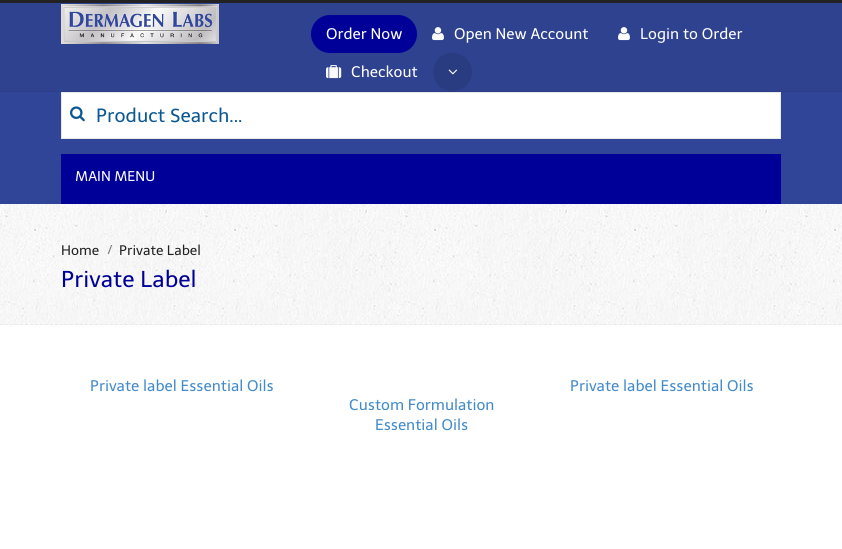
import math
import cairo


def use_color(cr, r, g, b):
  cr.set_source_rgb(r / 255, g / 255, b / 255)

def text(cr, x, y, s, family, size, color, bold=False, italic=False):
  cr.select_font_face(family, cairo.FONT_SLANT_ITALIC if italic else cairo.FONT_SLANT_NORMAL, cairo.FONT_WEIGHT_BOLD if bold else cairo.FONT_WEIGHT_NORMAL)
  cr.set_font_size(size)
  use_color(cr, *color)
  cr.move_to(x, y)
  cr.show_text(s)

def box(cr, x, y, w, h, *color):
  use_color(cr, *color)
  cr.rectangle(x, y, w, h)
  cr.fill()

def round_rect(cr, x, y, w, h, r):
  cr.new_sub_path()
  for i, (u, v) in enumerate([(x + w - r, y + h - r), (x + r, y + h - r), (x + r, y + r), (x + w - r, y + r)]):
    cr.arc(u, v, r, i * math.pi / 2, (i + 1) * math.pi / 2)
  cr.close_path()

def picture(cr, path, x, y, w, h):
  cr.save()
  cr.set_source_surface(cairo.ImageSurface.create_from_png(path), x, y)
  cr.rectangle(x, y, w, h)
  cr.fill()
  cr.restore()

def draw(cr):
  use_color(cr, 255, 255, 255)
  cr.paint()
  box(cr, 0, 92, 842, 112, 48, 69, 151)
  box(cr, 0, 0, 842, 3, 34, 34, 34)
  box(cr, 0, 3, 842, 88, 46, 66, 143)
  box(cr, 0, 91, 842, 1, 44, 63, 136)
  picture(cr, "img_01.png", 61, 4, 158, 40)
  use_color(cr, 0, 0, 153)
  round_rect(cr, 311, 15, 106, 38, 19)
  cr.fill()
  picture(cr, "img_02.png", 432, 27, 12, 14)
  picture(cr, "img_02.png", 618, 27, 12, 14)
  picture(cr, "img_03.png", 326, 65, 16, 14)
  use_color(cr, 41, 59, 129)
  round_rect(cr, 433, 53, 39, 38, 19)
  cr.fill()
  picture(cr, "img_04.png", 448, 69, 10, 6)
  use_color(cr, 255, 255, 255)
  cr.rectangle(61.5, 92.5, 719, 46)
  cr.fill_preserve()
  use_color(cr, 232, 232, 232)
  cr.set_line_width(1)
  cr.stroke()
  picture(cr, "img_05.png", 70, 106, 15, 16)
  box(cr, 61, 154, 720, 50, 0, 0, 153)
  picture(cr, "img_06.png", 0, 204, 842, 121)
  cr.new_path()
  cr.move_to(0, 324.5)
  cr.line_to(842, 324.5)
  use_color(cr, 233, 233, 233)
  cr.set_dash([3, 1.99])
  cr.stroke()
  picture(cr, "img_07.png", 107, 245, 6, 9)
  text(cr, 326, 39, "Order Now", "Telex", 15.25, (255, 255, 255))
  text(cr, 454, 39, "Open New Account", "Telex", 15.25, (255, 255, 255))
  text(cr, 640, 39, "Login to Order", "Telex", 15.25, (255, 255, 255))
  text(cr, 351, 77, "Checkout", "Telex", 15.25, (255, 255, 255))
  text(cr, 96, 122, "Product Search...", "Telex", 19, (10, 88, 147))
  text(cr, 75, 181, "MAIN MENU", "Telex", 14, (255, 255, 255))
  text(cr, 61, 255, "Home", "Telex", 13.75, (34, 34, 34))
  text(cr, 119, 255, "Private Label", "Telex", 13.75, (34, 34, 34))
  text(cr, 61, 287, "Private Label", "Telex", 22.75, (0, 0, 153))
  text(cr, 90, 391, "Private label Essential Oils", "Telex", 15.25, (66, 139, 202))
  text(cr, 570, 391, "Private label Essential Oils", "Telex", 15.25, (66, 139, 202))
  text(cr, 349, 410, "Custom Formulation", "Telex", 15.25, (66, 139, 202))
  text(cr, 375, 430, "Essential Oils", "Telex", 15.25, (66, 139, 202))


surface = cairo.ImageSurface(cairo.FORMAT_RGB24, 842, 549)
cr = cairo.Context(surface)
options = cairo.FontOptions()
options.set_hint_metrics(cairo.HINT_METRICS_OFF)
options.set_hint_style(cairo.HINT_STYLE_NONE)
cr.set_font_options(options)
cr.set_miter_limit(4)
draw(cr)
surface.write_to_png("out.png")
